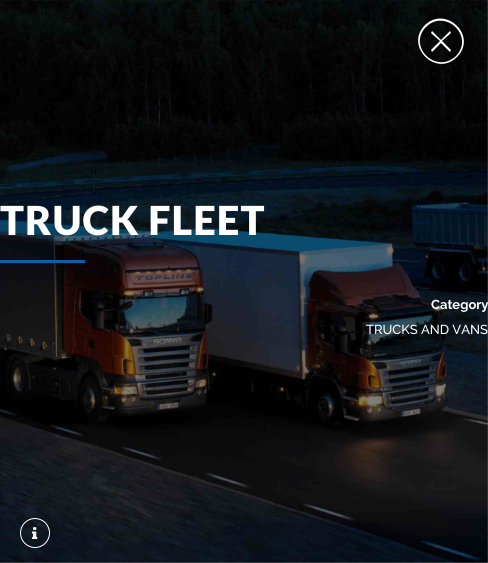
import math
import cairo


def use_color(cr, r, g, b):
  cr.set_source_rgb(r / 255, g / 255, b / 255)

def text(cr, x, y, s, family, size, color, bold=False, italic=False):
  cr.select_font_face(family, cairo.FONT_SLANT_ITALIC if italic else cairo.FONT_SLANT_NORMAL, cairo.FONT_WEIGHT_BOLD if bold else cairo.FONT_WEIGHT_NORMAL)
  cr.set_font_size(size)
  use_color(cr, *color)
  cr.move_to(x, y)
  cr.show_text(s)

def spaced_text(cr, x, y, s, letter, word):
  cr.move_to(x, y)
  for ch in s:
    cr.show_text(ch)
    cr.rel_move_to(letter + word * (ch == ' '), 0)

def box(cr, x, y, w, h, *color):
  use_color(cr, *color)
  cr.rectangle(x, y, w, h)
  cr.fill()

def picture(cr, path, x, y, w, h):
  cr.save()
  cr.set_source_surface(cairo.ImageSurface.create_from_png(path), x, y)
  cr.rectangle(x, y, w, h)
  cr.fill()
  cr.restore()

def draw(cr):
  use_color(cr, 255, 255, 255)
  cr.paint()
  picture(cr, "img_01.png", 0, 0, 488, 563)
  use_color(cr, 255, 255, 255)
  cr.new_path()
  cr.move_to(425, 25)
  cr.curve_to(404, 46, 436, 78, 457, 57)
  cr.curve_to(478, 36, 446, 5, 425, 25)
  cr.close_path()
  cr.move_to(456, 56)
  cr.curve_to(436, 75, 407, 46, 426, 27)
  cr.curve_to(445, 8, 475, 36, 456, 56)
  cr.close_path()
  cr.move_to(432, 31)
  cr.line_to(431, 33)
  cr.line_to(440, 41)
  cr.line_to(431, 50)
  cr.line_to(432, 52)
  cr.line_to(441, 43)
  cr.line_to(450, 52)
  cr.line_to(451, 50)
  cr.line_to(442, 41)
  cr.line_to(451, 33)
  cr.line_to(450, 31)
  cr.line_to(441, 40)
  cr.close_path()
  cr.fill()
  box(cr, 0, 260, 85, 3, 11, 96, 169)
  cr.arc(35, 533, 14.5, 0, 2 * math.pi)
  use_color(cr, 255, 255, 255)
  cr.set_line_width(1)
  cr.stroke()
  picture(cr, "img_02.png", 32, 527, 6, 12)
  cr.select_font_face("Lato Black")
  cr.set_font_size(40)
  spaced_text(cr, 0, 235, "TRUCK FLEET", 1, 0)
  text(cr, 431, 309, "Category", "Raleway", 13, (255, 255, 255), bold=True)
  text(cr, 366, 334, "TRUCKS AND VANS", "Raleway Medium", 13, (255, 255, 255))


surface = cairo.ImageSurface(cairo.FORMAT_RGB24, 488, 563)
cr = cairo.Context(surface)
options = cairo.FontOptions()
options.set_hint_metrics(cairo.HINT_METRICS_OFF)
options.set_hint_style(cairo.HINT_STYLE_NONE)
cr.set_font_options(options)
cr.set_miter_limit(4)
draw(cr)
surface.write_to_png("out.png")
